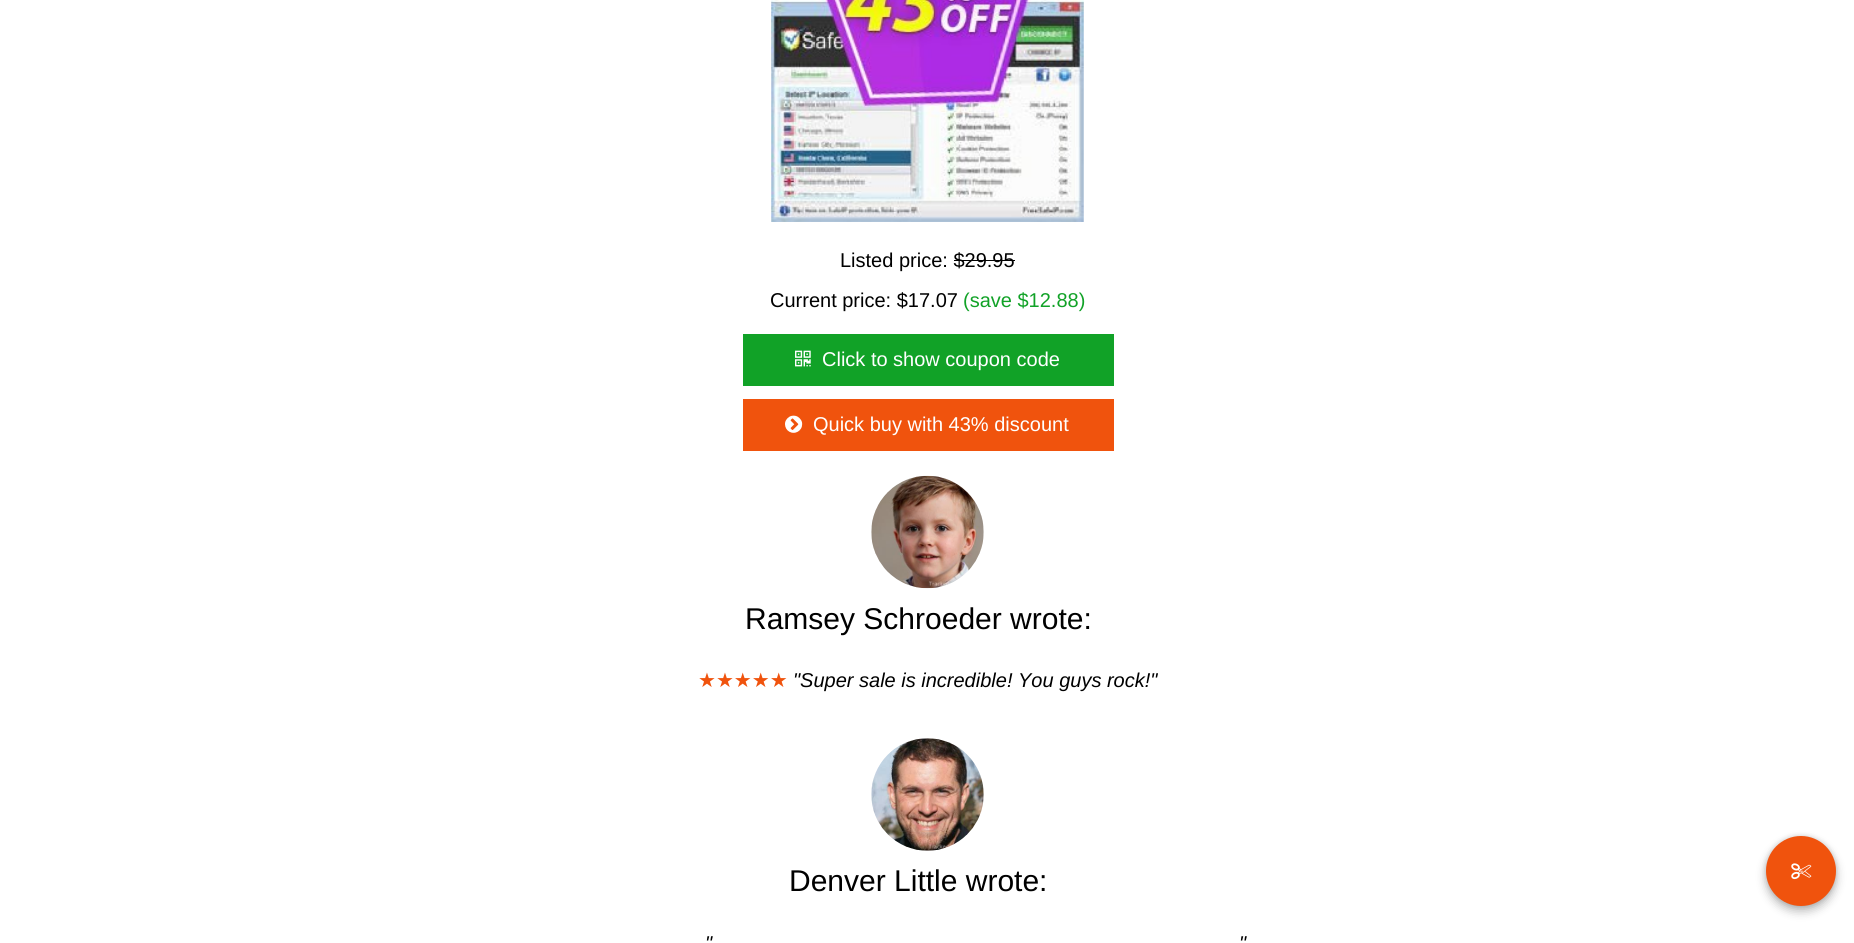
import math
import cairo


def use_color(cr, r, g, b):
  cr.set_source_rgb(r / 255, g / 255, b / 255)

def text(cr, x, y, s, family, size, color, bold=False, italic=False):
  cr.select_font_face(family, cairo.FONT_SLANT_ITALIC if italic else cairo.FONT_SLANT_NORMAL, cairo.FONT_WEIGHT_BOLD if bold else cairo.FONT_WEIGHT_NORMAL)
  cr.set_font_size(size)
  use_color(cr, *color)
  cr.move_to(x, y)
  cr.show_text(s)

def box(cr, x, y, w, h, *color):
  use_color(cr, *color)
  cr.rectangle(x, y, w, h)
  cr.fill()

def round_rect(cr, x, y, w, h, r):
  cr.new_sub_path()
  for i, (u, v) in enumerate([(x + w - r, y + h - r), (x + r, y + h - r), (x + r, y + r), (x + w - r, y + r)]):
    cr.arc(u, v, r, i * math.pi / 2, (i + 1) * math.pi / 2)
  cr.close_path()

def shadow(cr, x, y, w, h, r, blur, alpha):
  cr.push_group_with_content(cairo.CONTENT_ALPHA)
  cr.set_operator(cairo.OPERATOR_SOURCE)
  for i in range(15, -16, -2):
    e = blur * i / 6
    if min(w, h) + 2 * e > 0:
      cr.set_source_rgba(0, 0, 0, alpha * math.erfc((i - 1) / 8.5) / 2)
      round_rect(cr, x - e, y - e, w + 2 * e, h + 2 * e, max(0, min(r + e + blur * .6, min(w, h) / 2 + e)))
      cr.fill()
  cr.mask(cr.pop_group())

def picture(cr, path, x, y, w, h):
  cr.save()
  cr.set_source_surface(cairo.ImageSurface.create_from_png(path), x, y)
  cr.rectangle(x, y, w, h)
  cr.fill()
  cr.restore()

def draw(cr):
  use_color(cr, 255, 255, 255)
  cr.paint()
  picture(cr, "img_01.png", 771, 0, 313, 222)
  box(cr, 954, 260, 61, 1, 0, 0, 0)
  box(cr, 743, 334, 371, 52, 17, 162, 39)
  picture(cr, "img_02.png", 795, 350, 16, 17)
  box(cr, 743, 399, 371, 52, 240, 83, 13)
  picture(cr, "img_03.png", 785, 415, 18, 18)
  picture(cr, "img_04.png", 871, 475, 113, 114)
  picture(cr, "img_05.png", 871, 738, 113, 113)
  use_color(cr, 0, 0, 0)
  shadow(cr, 1766, 841, 70, 70, 35, 5, 0.28)
  shadow(cr, 1766, 836, 70, 70, 35, 2.5, 0.14)
  use_color(cr, 240, 83, 13)
  cr.arc(1801, 871, 35, 0, 2 * math.pi)
  cr.fill()
  picture(cr, "img_06.png", 1791, 863, 21, 17)
  text(cr, 840, 267, "Listed price: $29.95", "Liberation Sans", 20, (0, 0, 0))
  text(cr, 770, 307, "Current price: $17.07", "Liberation Sans", 20, (0, 0, 0))
  text(cr, 963, 307, "(save $12.88)", "Liberation Sans", 20, (17, 162, 39))
  text(cr, 822, 366, "Click to show coupon code", "Liberation Sans", 20, (255, 255, 255))
  text(cr, 813, 431, "Quick buy with 43% discount", "Liberation Sans", 20, (255, 255, 255))
  text(cr, 745, 629, "Ramsey Schroeder wrote:", "Liberation Sans", 30, (0, 0, 0))
  text(cr, 698, 687, "★★★★★", "DejaVu Sans", 20, (240, 83, 13))
  text(cr, 793, 687, "\"Super sale is incredible! You guys rock!\"", "Liberation Sans", 20, (0, 0, 0), italic=True)
  text(cr, 789, 891, "Denver Little wrote:", "Liberation Sans", 30, (0, 0, 0))
  text(cr, 705, 950, "\"", "Liberation Sans", 20, (0, 0, 0), italic=True)
  text(cr, 1239, 950, "\"", "Liberation Sans", 20, (0, 0, 0), italic=True)


surface = cairo.ImageSurface(cairo.FORMAT_RGB24, 1854, 943)
cr = cairo.Context(surface)
options = cairo.FontOptions()
options.set_hint_metrics(cairo.HINT_METRICS_OFF)
options.set_hint_style(cairo.HINT_STYLE_NONE)
cr.set_font_options(options)
cr.set_miter_limit(4)
draw(cr)
surface.write_to_png("out.png")
